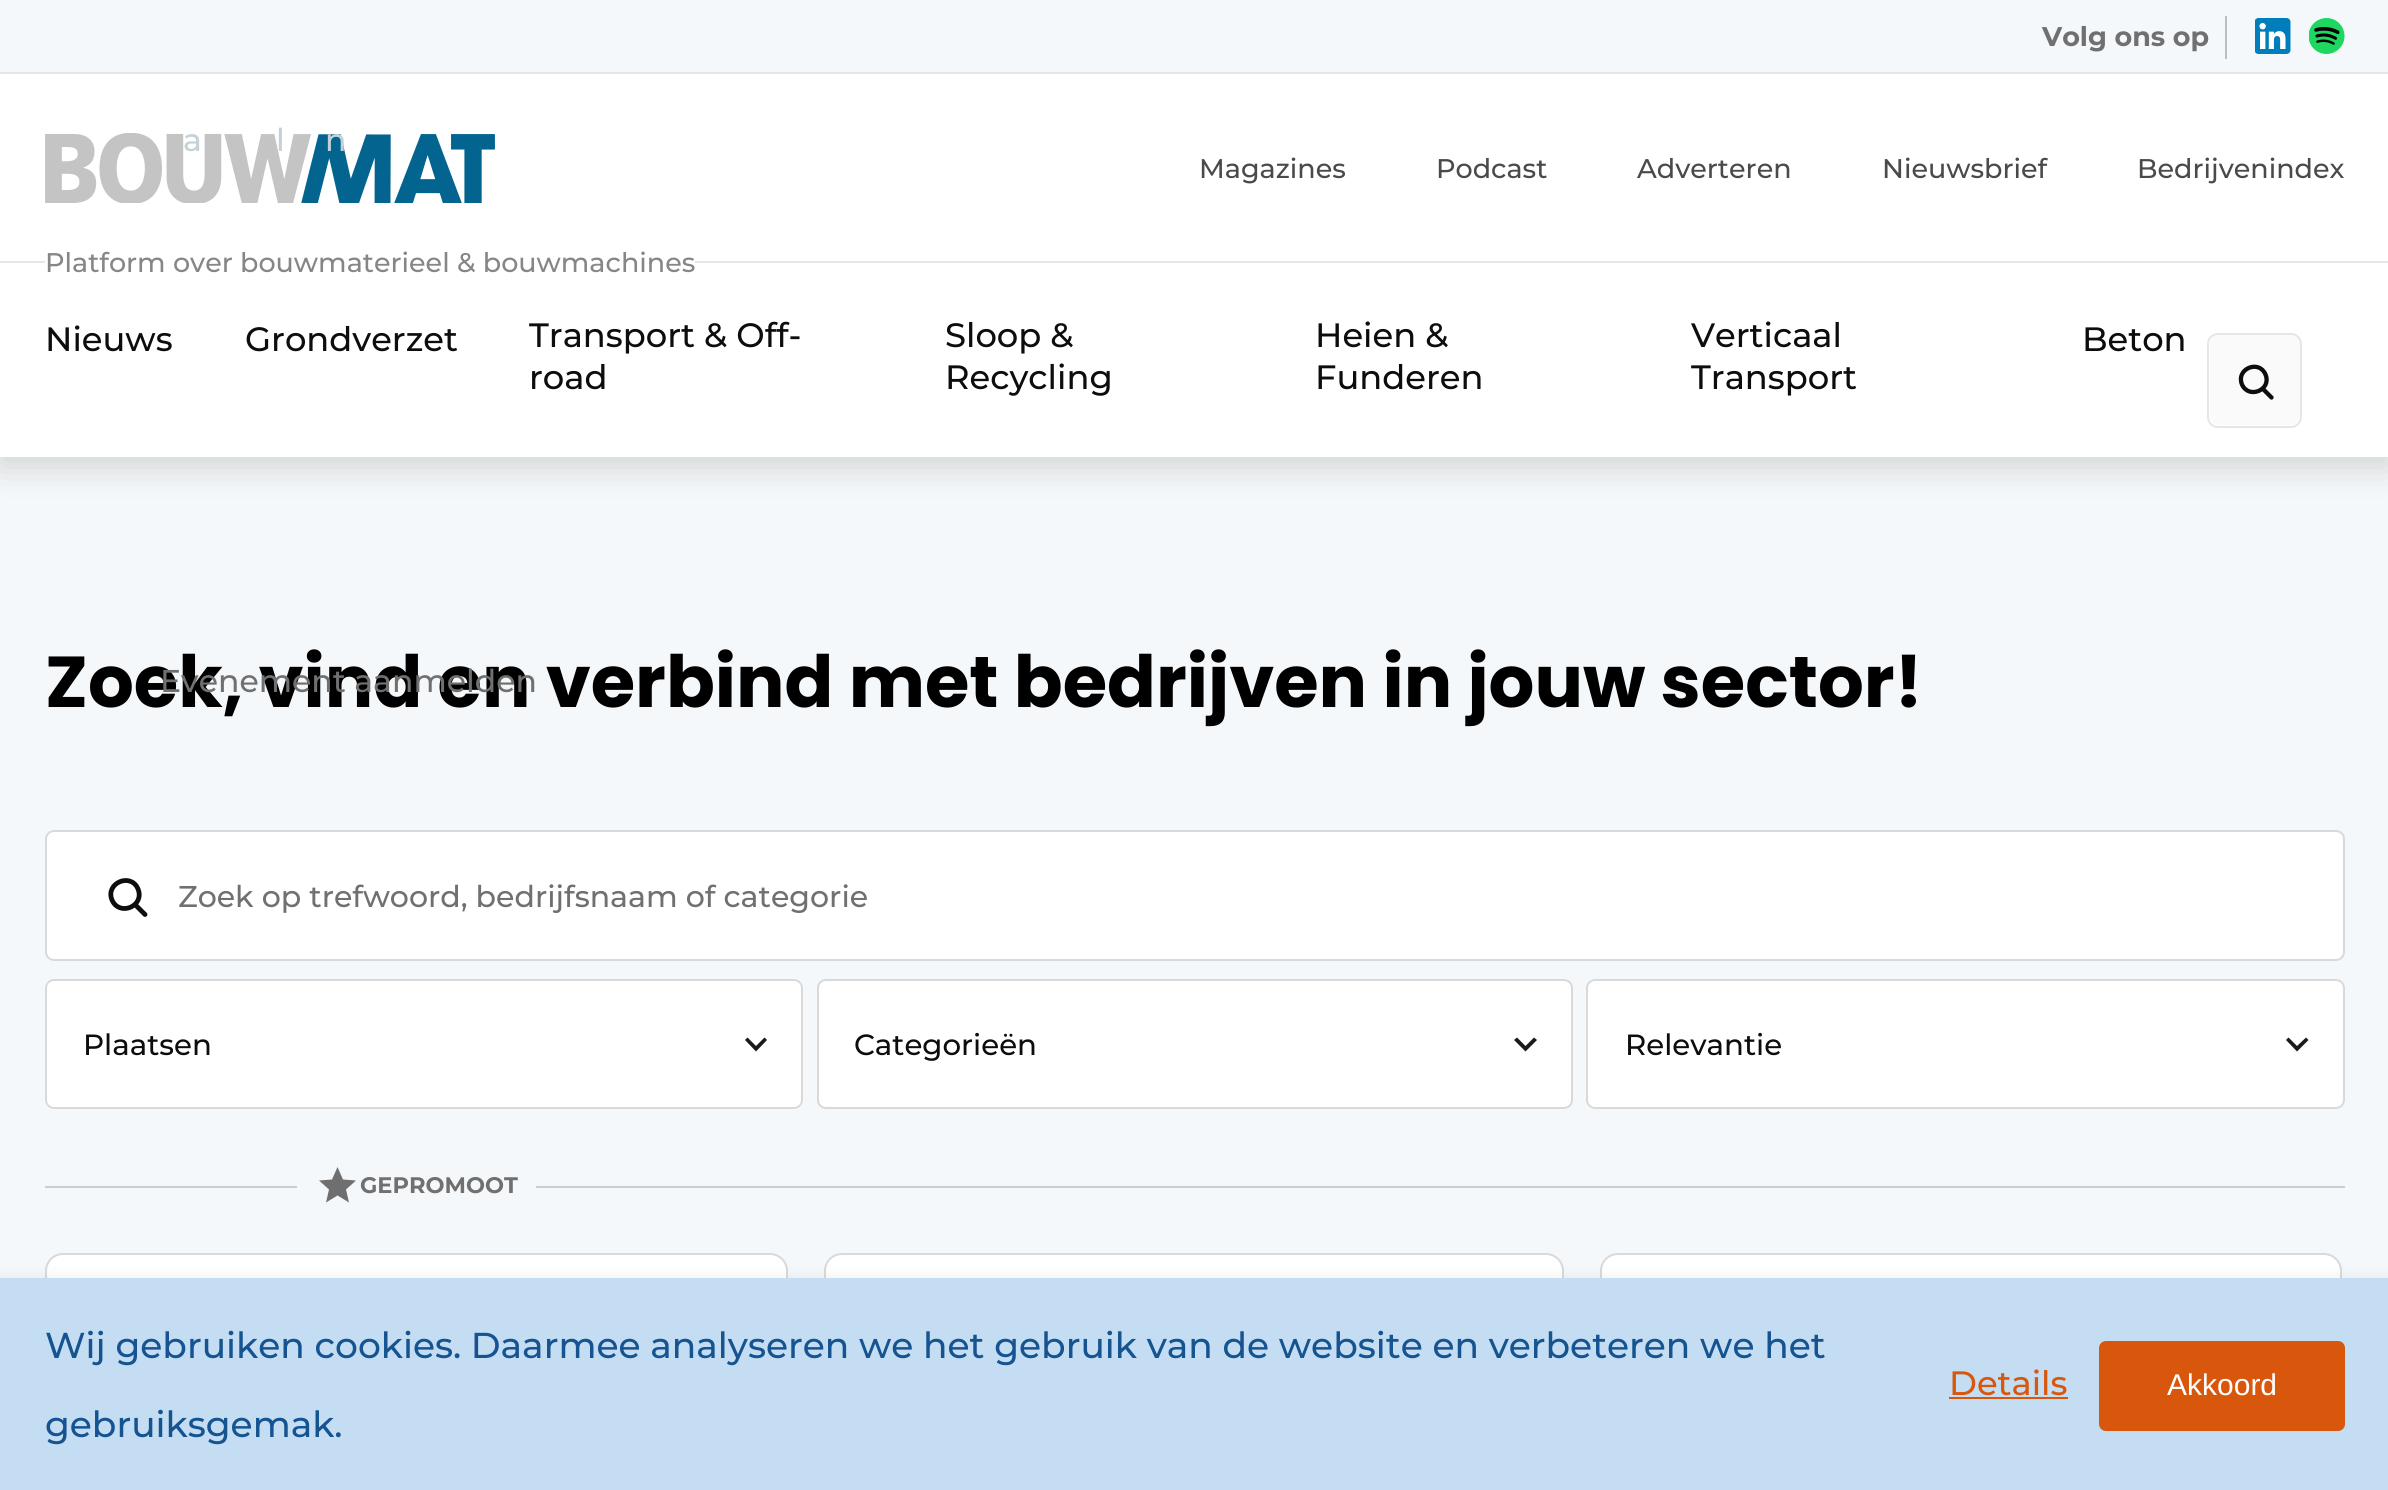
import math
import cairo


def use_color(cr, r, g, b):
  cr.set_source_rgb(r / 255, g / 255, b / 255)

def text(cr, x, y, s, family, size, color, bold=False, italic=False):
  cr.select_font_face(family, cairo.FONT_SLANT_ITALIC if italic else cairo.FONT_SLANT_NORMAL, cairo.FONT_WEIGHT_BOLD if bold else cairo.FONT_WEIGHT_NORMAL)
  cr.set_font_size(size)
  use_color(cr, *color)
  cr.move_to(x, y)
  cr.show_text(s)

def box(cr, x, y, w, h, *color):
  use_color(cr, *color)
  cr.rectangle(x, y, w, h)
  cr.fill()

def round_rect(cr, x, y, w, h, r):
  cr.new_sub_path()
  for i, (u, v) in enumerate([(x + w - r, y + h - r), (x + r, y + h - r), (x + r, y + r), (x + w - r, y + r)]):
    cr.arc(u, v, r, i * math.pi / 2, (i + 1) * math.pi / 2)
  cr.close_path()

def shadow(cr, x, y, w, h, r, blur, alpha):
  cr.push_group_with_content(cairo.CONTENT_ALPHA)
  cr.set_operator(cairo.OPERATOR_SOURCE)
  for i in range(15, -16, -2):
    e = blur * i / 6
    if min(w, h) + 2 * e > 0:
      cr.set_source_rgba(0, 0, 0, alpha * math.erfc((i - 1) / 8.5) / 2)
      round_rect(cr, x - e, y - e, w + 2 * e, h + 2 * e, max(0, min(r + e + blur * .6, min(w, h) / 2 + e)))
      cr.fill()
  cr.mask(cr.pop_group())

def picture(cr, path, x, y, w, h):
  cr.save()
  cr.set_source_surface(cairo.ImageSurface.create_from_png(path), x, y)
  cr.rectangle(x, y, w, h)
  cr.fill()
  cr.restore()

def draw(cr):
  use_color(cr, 245, 248, 250)
  cr.paint()
  box(cr, 2225, 16, 2, 43, 184, 191, 194)
  picture(cr, "img_01.png", 2255, 18, 36, 36)
  picture(cr, "img_02.png", 2309, 18, 36, 36)
  box(cr, 0, 72, 2388, 2, 230, 230, 230)
  use_color(cr, 0, 0, 0)
  shadow(cr, 0, 272, 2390, 194, 0, 18, 0.16)
  box(cr, 0, 74, 2388, 187, 255, 255, 255)
  box(cr, 0, 261, 2388, 2, 230, 230, 230)
  picture(cr, "img_03.png", 45, 133, 450, 70)
  box(cr, 45, 261, 650, 2, 255, 255, 255)
  box(cr, 0, 263, 2388, 194, 255, 255, 255)
  use_color(cr, 250, 250, 250)
  round_rect(cr, 2210, 335, 90, 90, 9)
  cr.fill()
  cr.new_path()
  cr.move_to(2242, 384.5)
  cr.curve_to(2248.5, 399.5, 2272, 390, 2265.5, 374.5)
  cr.curve_to(2259, 359, 2235.5, 369, 2242, 384.5)
  cr.close_path()
  cr.move_to(2263, 389)
  cr.line_to(2271.5, 397.5)
  use_color(cr, 13, 13, 13)
  cr.set_line_width(4.3)
  cr.set_line_cap(cairo.LINE_CAP_ROUND)
  cr.set_line_join(cairo.LINE_JOIN_ROUND)
  cr.stroke()
  round_rect(cr, 2208, 334, 93, 93, 10)
  use_color(cr, 230, 230, 230)
  cr.set_line_width(2)
  cr.set_line_cap(cairo.LINE_CAP_BUTT)
  cr.set_line_join(cairo.LINE_JOIN_MITER)
  cr.stroke()
  use_color(cr, 255, 255, 255)
  round_rect(cr, 46, 831, 2298, 129, 8)
  cr.fill_preserve()
  use_color(cr, 217, 217, 217)
  cr.stroke()
  cr.new_path()
  cr.move_to(112, 900)
  cr.curve_to(119.5, 917, 145, 906, 138, 889)
  cr.curve_to(131, 872, 105, 883, 112, 900)
  cr.close_path()
  cr.move_to(135.5, 905)
  cr.line_to(145, 914.5)
  use_color(cr, 13, 13, 13)
  cr.set_line_width(4.8)
  cr.set_line_cap(cairo.LINE_CAP_ROUND)
  cr.set_line_join(cairo.LINE_JOIN_ROUND)
  cr.stroke()
  use_color(cr, 255, 255, 255)
  round_rect(cr, 45, 979, 758, 130, 9)
  cr.fill()
  use_color(cr, 26, 26, 26)
  cr.new_path()
  cr.move_to(747.5, 1037.5)
  cr.line_to(756, 1046)
  cr.line_to(764.5, 1037.5)
  cr.line_to(767, 1040)
  cr.line_to(756, 1051.5)
  cr.line_to(745, 1040)
  cr.close_path()
  cr.fill()
  round_rect(cr, 46, 980, 756, 128, 8)
  use_color(cr, 217, 217, 217)
  cr.set_line_width(2)
  cr.set_line_cap(cairo.LINE_CAP_BUTT)
  cr.set_line_join(cairo.LINE_JOIN_MITER)
  cr.stroke()
  use_color(cr, 255, 255, 255)
  round_rect(cr, 817, 979, 756, 130, 9)
  cr.fill()
  use_color(cr, 26, 26, 26)
  cr.new_path()
  cr.move_to(1517, 1037.5)
  cr.line_to(1525.5, 1046)
  cr.line_to(1534, 1037.5)
  cr.line_to(1537, 1040)
  cr.line_to(1525.5, 1051.5)
  cr.line_to(1514, 1040)
  cr.close_path()
  cr.fill()
  round_rect(cr, 818, 980, 754, 128, 8)
  use_color(cr, 217, 217, 217)
  cr.stroke()
  use_color(cr, 255, 255, 255)
  round_rect(cr, 1586, 979, 759, 130, 9)
  cr.fill()
  use_color(cr, 26, 26, 26)
  cr.new_path()
  cr.move_to(2288.5, 1037.5)
  cr.line_to(2297, 1046)
  cr.line_to(2306, 1037.5)
  cr.line_to(2308.5, 1040)
  cr.line_to(2297, 1051.5)
  cr.line_to(2286, 1040)
  cr.close_path()
  cr.fill()
  round_rect(cr, 1587, 980, 757, 128, 8)
  use_color(cr, 217, 217, 217)
  cr.stroke()
  box(cr, 45, 1186, 2300, 2, 204, 204, 204)
  box(cr, 297, 1186, 239, 2, 245, 248, 250)
  use_color(cr, 111, 111, 111)
  cr.new_path()
  cr.move_to(326, 1202.5)
  cr.line_to(329, 1189.5)
  cr.line_to(319, 1180.5)
  cr.line_to(332, 1179.5)
  cr.line_to(337.5, 1167)
  cr.line_to(343, 1179.5)
  cr.line_to(356, 1180.5)
  cr.line_to(346, 1189.5)
  cr.line_to(349, 1202.5)
  cr.line_to(337.5, 1195.5)
  cr.close_path()
  cr.fill()
  use_color(cr, 255, 255, 255)
  round_rect(cr, 46, 1254, 741, 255, 17)
  cr.fill_preserve()
  use_color(cr, 217, 217, 217)
  cr.stroke()
  use_color(cr, 255, 255, 255)
  round_rect(cr, 825, 1254, 738, 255, 17)
  cr.fill_preserve()
  use_color(cr, 217, 217, 217)
  cr.stroke()
  use_color(cr, 255, 255, 255)
  round_rect(cr, 1601, 1254, 740, 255, 17)
  cr.fill_preserve()
  use_color(cr, 217, 217, 217)
  cr.stroke()
  use_color(cr, 0, 0, 0)
  shadow(cr, -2, 1276, 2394, 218, 0, 7, 0.06)
  box(cr, 0, 1278, 2388, 212, 196, 221, 242)
  box(cr, 1949, 1397, 119, 2, 217, 87, 12)
  round_rect(cr, 2099, 1341, 246, 90, 7)
  cr.fill()
  text(cr, 2042, 46, "Volg ons op", "Montserrat", 27, (112, 112, 112), bold=True)
  text(cr, 183, 151, "a", "Montserrat Medium", 31.5, (196, 209, 214))
  text(cr, 276, 151, "l", "Montserrat Medium", 31.5, (196, 209, 214))
  text(cr, 325, 151, "n", "Montserrat Medium", 31.5, (196, 209, 214))
  text(cr, 1199, 178, "Magazines", "Montserrat Medium", 27, (74, 74, 74))
  text(cr, 1436, 178, "Podcast", "Montserrat Medium", 27, (74, 74, 74))
  text(cr, 1637, 178, "Adverteren", "Montserrat Medium", 27, (74, 74, 74))
  text(cr, 1882, 178, "Nieuwsbrief", "Montserrat Medium", 27, (74, 74, 74))
  text(cr, 2137, 178, "Bedrijvenindex", "Montserrat Medium", 27, (74, 74, 74))
  text(cr, 45, 272, "Platform over bouwmaterieel & bouwmachines", "Montserrat Medium", 27, (134, 134, 134))
  text(cr, 45, 351, "Nieuws", "Montserrat Medium", 33.75, (13, 13, 13))
  text(cr, 245, 351, "Grondverzet", "Montserrat Medium", 33.75, (13, 13, 13))
  text(cr, 529, 347, "Transport & Off-", "Montserrat Medium", 33.75, (13, 13, 13))
  text(cr, 529, 389, "road", "Montserrat Medium", 33.75, (13, 13, 13))
  text(cr, 945, 347, "Sloop &", "Montserrat Medium", 33.75, (13, 13, 13))
  text(cr, 945, 389, "Recycling", "Montserrat Medium", 33.75, (13, 13, 13))
  text(cr, 1315, 347, "Heien &", "Montserrat Medium", 33.75, (13, 13, 13))
  text(cr, 1315, 389, "Funderen", "Montserrat Medium", 33.75, (13, 13, 13))
  text(cr, 1691, 347, "Verticaal", "Montserrat Medium", 33.75, (13, 13, 13))
  text(cr, 1691, 389, "Transport", "Montserrat Medium", 33.75, (13, 13, 13))
  text(cr, 2082, 351, "Beton", "Montserrat Medium", 33.75, (13, 13, 13))
  text(cr, 45, 707, "Zoek, vind en verbind met bedrijven in jouw sector!", "Poppins", 72, (0, 0, 0), bold=True)
  text(cr, 160, 692, "Evenement aanmelden", "Montserrat Medium", 31.5, (112, 112, 112))
  text(cr, 178, 907, "Zoek op trefwoord, bedrijfsnaam of categorie", "Montserrat Medium", 30, (112, 112, 112))
  text(cr, 83, 1055, "Plaatsen", "Montserrat Medium", 29.25, (13, 13, 13))
  text(cr, 854, 1055, "Categorieën", "Montserrat Medium", 29.25, (13, 13, 13))
  text(cr, 1625, 1055, "Relevantie", "Montserrat Medium", 29.25, (13, 13, 13))
  text(cr, 360, 1193, "GEPROMOOT", "Montserrat", 22.5, (112, 112, 112), bold=True)
  text(cr, 45, 1358, "Wij gebruiken cookies. Daarmee analyseren we het gebruik van de website en verbeteren we het", "Montserrat Medium", 36, (21, 83, 145))
  text(cr, 45, 1437, "gebruiksgemak.", "Montserrat Medium", 36, (21, 83, 145))
  text(cr, 1949, 1395, "Details", "Montserrat Medium", 33.75, (217, 87, 12))
  text(cr, 2167, 1395, "Akkoord", "Liberation Sans", 30, (255, 255, 255))


surface = cairo.ImageSurface(cairo.FORMAT_RGB24, 2388, 1490)
cr = cairo.Context(surface)
options = cairo.FontOptions()
options.set_hint_metrics(cairo.HINT_METRICS_OFF)
options.set_hint_style(cairo.HINT_STYLE_NONE)
cr.set_font_options(options)
cr.set_miter_limit(4)
draw(cr)
surface.write_to_png("out.png")
